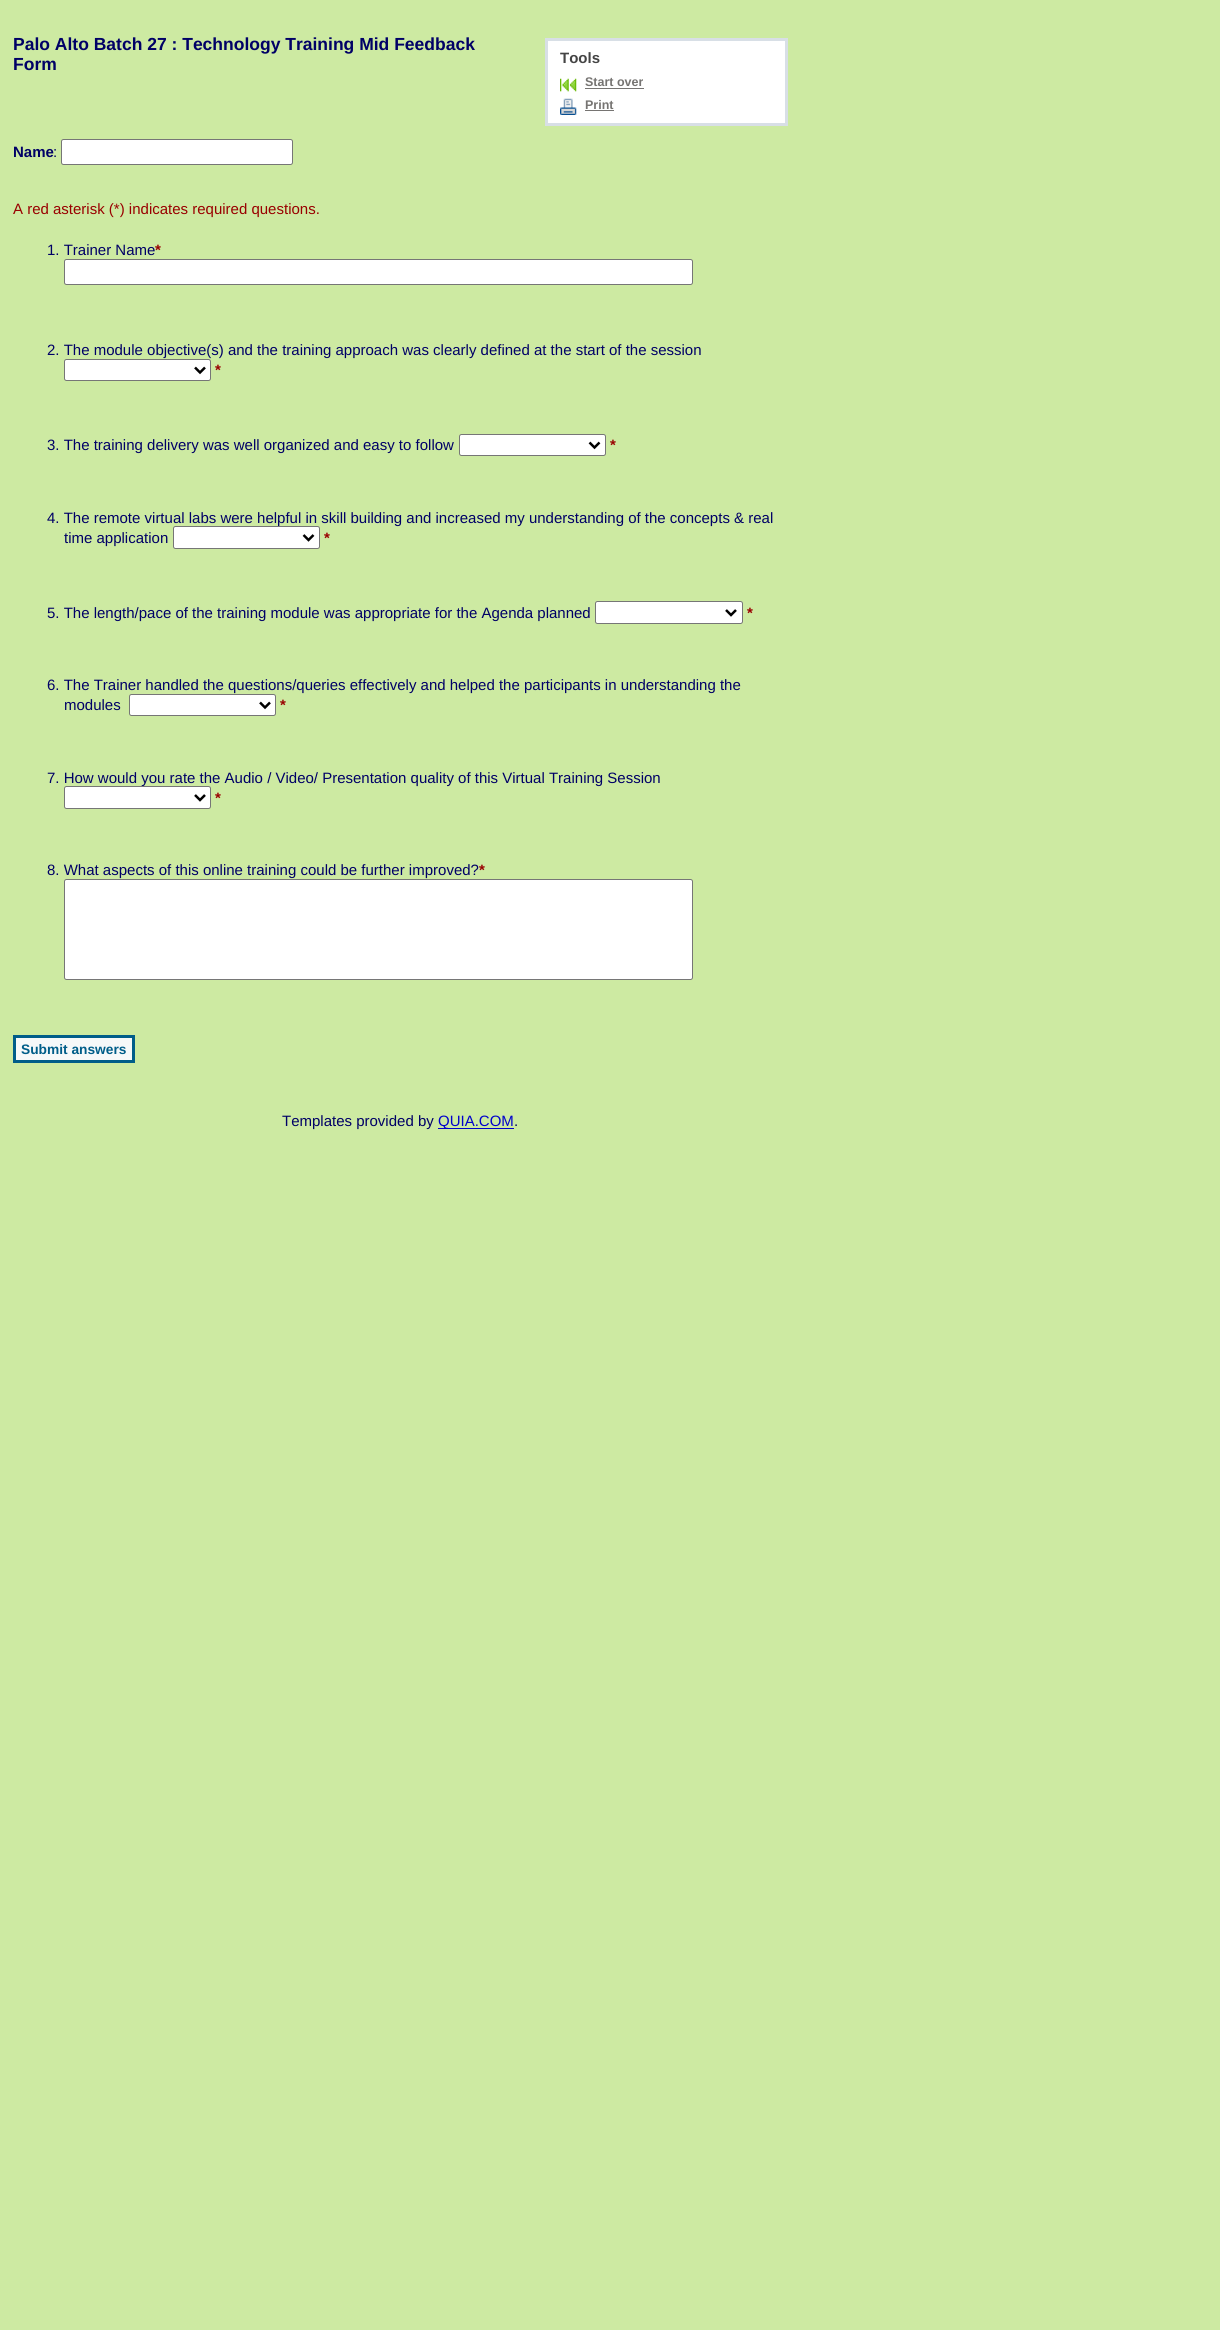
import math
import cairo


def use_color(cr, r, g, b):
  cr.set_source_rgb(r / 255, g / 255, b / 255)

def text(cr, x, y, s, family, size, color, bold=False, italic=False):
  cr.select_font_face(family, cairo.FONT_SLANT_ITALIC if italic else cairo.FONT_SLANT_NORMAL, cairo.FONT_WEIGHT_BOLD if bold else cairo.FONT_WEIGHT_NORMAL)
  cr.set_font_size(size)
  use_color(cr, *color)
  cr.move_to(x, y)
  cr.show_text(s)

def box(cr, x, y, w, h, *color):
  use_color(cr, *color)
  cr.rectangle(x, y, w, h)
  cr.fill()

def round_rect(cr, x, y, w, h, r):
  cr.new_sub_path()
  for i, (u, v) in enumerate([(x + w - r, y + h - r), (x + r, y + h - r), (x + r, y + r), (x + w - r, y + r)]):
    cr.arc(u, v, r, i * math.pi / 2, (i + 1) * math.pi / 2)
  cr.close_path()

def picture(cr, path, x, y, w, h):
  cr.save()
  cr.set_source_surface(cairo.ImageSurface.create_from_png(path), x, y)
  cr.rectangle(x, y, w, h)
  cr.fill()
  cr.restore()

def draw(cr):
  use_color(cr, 205, 234, 162)
  cr.paint()
  use_color(cr, 255, 255, 255)
  cr.rectangle(546.5, 39.5, 240, 85)
  cr.fill_preserve()
  use_color(cr, 216, 223, 230)
  cr.set_line_width(3)
  cr.stroke()
  picture(cr, "img_01.png", 560, 78, 17, 14)
  box(cr, 585, 88, 59, 1, 118, 116, 114)
  picture(cr, "img_02.png", 560, 98, 17, 17)
  box(cr, 585, 110, 29, 1, 118, 116, 114)
  use_color(cr, 255, 255, 255)
  round_rect(cr, 61.5, 139.5, 231, 25, 2)
  cr.fill_preserve()
  use_color(cr, 118, 118, 118)
  cr.set_line_width(1)
  cr.stroke()
  use_color(cr, 255, 255, 255)
  round_rect(cr, 64.5, 259.5, 628, 25, 2)
  cr.fill_preserve()
  use_color(cr, 118, 118, 118)
  cr.stroke()
  use_color(cr, 255, 255, 255)
  round_rect(cr, 64.5, 359.5, 146, 21, 2)
  cr.fill_preserve()
  use_color(cr, 118, 118, 118)
  cr.stroke()
  cr.new_path()
  cr.move_to(195, 367.5)
  cr.line_to(200, 372.5)
  cr.line_to(205, 367.5)
  use_color(cr, 0, 0, 0)
  cr.set_line_width(2.5)
  cr.stroke()
  use_color(cr, 255, 255, 255)
  round_rect(cr, 459.5, 434.5, 146, 21, 2)
  cr.fill_preserve()
  use_color(cr, 118, 118, 118)
  cr.set_line_width(1)
  cr.stroke()
  cr.new_path()
  cr.move_to(589.5, 442.5)
  cr.line_to(594.5, 447.5)
  cr.line_to(599.5, 442.5)
  use_color(cr, 0, 0, 0)
  cr.set_line_width(2.5)
  cr.stroke()
  use_color(cr, 255, 255, 255)
  round_rect(cr, 595.5, 601.5, 147, 22, 2)
  cr.fill_preserve()
  use_color(cr, 118, 118, 118)
  cr.set_line_width(1)
  cr.stroke()
  cr.new_path()
  cr.move_to(726, 610)
  cr.line_to(731, 615)
  cr.line_to(736, 610)
  use_color(cr, 0, 0, 0)
  cr.set_line_width(2.5)
  cr.stroke()
  use_color(cr, 255, 255, 255)
  round_rect(cr, 129.5, 694.5, 146, 21, 2)
  cr.fill_preserve()
  use_color(cr, 118, 118, 118)
  cr.set_line_width(1)
  cr.stroke()
  cr.new_path()
  cr.move_to(260, 702.5)
  cr.line_to(265, 707.5)
  cr.line_to(270, 702.5)
  use_color(cr, 0, 0, 0)
  cr.set_line_width(2.5)
  cr.stroke()
  use_color(cr, 255, 255, 255)
  round_rect(cr, 64.5, 879.5, 628, 100, 2)
  cr.fill_preserve()
  use_color(cr, 118, 118, 118)
  cr.set_line_width(1)
  cr.stroke()
  use_color(cr, 246, 248, 249)
  cr.rectangle(14.5, 1036.5, 119, 25)
  cr.fill_preserve()
  use_color(cr, 0, 93, 137)
  cr.set_line_width(3)
  cr.stroke()
  box(cr, 438, 1128, 76, 1, 0, 0, 204)
  text(cr, 13, 50, "Palo Alto Batch 27 : Technology Training Mid Feedback", "Liberation Sans", 17.5, (0, 0, 102), bold=True)
  text(cr, 13, 70, "Form", "Liberation Sans", 17.5, (0, 0, 102), bold=True)
  text(cr, 560, 63, "Tools", "Liberation Sans", 15, (68, 68, 68), bold=True)
  text(cr, 585, 86, "Start over", "Liberation Sans", 12.5, (118, 116, 114), bold=True)
  text(cr, 585, 109, "Print", "Liberation Sans", 12.5, (118, 116, 114), bold=True)
  text(cr, 13, 157, "Name", "Liberation Sans", 15, (0, 0, 102), bold=True)
  text(cr, 53, 157, ":", "Liberation Sans", 15, (0, 0, 102))
  text(cr, 13, 214, "A red asterisk (*) indicates required questions.", "Liberation Sans", 15, (153, 0, 0))
  text(cr, 47, 255, "1. Trainer Name", "Liberation Sans", 15, (0, 0, 102))
  text(cr, 155, 255, "*", "Liberation Sans", 15, (153, 0, 0), bold=True)
  text(cr, 47, 355, "2. The module objective(s) and the training approach was clearly defined at the start of the session", "Liberation Sans", 15, (0, 0, 102))
  text(cr, 215, 375, "*", "Liberation Sans", 15, (153, 0, 0), bold=True)
  text(cr, 47, 450, "3. The training delivery was well organized and easy to follow", "Liberation Sans", 15, (0, 0, 102))
  text(cr, 610, 450, "*", "Liberation Sans", 15, (153, 0, 0), bold=True)
  text(cr, 47, 523, "4. The remote virtual labs were helpful in skill building and increased my understanding of the concepts & real", "Liberation Sans", 15, (0, 0, 102))
  text(cr, 64, 543, "time application", "Liberation Sans", 15, (0, 0, 102))
  use_color(cr, 255, 255, 255)
  round_rect(cr, 173.5, 526.5, 146, 22, 2)
  cr.fill_preserve()
  use_color(cr, 118, 118, 118)
  cr.set_line_width(1)
  cr.stroke()
  cr.new_path()
  cr.move_to(303.5, 535)
  cr.line_to(308.5, 540)
  cr.line_to(313.5, 535)
  use_color(cr, 0, 0, 0)
  cr.set_line_width(2.5)
  cr.stroke()
  text(cr, 324, 543, "*", "Liberation Sans", 15, (153, 0, 0), bold=True)
  text(cr, 47, 618, "5. The length/pace of the training module was appropriate for the Agenda planned", "Liberation Sans", 15, (0, 0, 102))
  text(cr, 747, 618, "*", "Liberation Sans", 15, (153, 0, 0), bold=True)
  text(cr, 47, 690, "6. The Trainer handled the questions/queries effectively and helped the participants in understanding the", "Liberation Sans", 15, (0, 0, 102))
  text(cr, 64, 710, "modules", "Liberation Sans", 15, (0, 0, 102))
  text(cr, 280, 710, "*", "Liberation Sans", 15, (153, 0, 0), bold=True)
  text(cr, 47, 783, "7. How would you rate the Audio / Video/ Presentation quality of this Virtual Training Session", "Liberation Sans", 15, (0, 0, 102))
  use_color(cr, 255, 255, 255)
  round_rect(cr, 64.5, 786.5, 146, 22, 2)
  cr.fill_preserve()
  use_color(cr, 118, 118, 118)
  cr.set_line_width(1)
  cr.stroke()
  cr.new_path()
  cr.move_to(195, 795)
  cr.line_to(200, 800)
  cr.line_to(205, 795)
  use_color(cr, 0, 0, 0)
  cr.set_line_width(2.5)
  cr.stroke()
  text(cr, 215, 803, "*", "Liberation Sans", 15, (153, 0, 0), bold=True)
  text(cr, 47, 875, "8. What aspects of this online training could be further improved?", "Liberation Sans", 15, (0, 0, 102))
  text(cr, 479, 875, "*", "Liberation Sans", 15, (153, 0, 0), bold=True)
  text(cr, 21, 1054, "Submit answers", "Liberation Sans", 13.75, (0, 93, 137), bold=True)
  text(cr, 282, 1126, "Templates provided by", "Liberation Sans", 15, (0, 0, 102))
  text(cr, 438, 1126, "QUIA.COM", "Liberation Sans", 15, (0, 0, 204))
  text(cr, 514, 1126, ".", "Liberation Sans", 15, (0, 0, 102))


surface = cairo.ImageSurface(cairo.FORMAT_RGB24, 1220, 2330)
cr = cairo.Context(surface)
options = cairo.FontOptions()
options.set_hint_metrics(cairo.HINT_METRICS_OFF)
options.set_hint_style(cairo.HINT_STYLE_NONE)
cr.set_font_options(options)
cr.set_miter_limit(4)
draw(cr)
surface.write_to_png("out.png")
